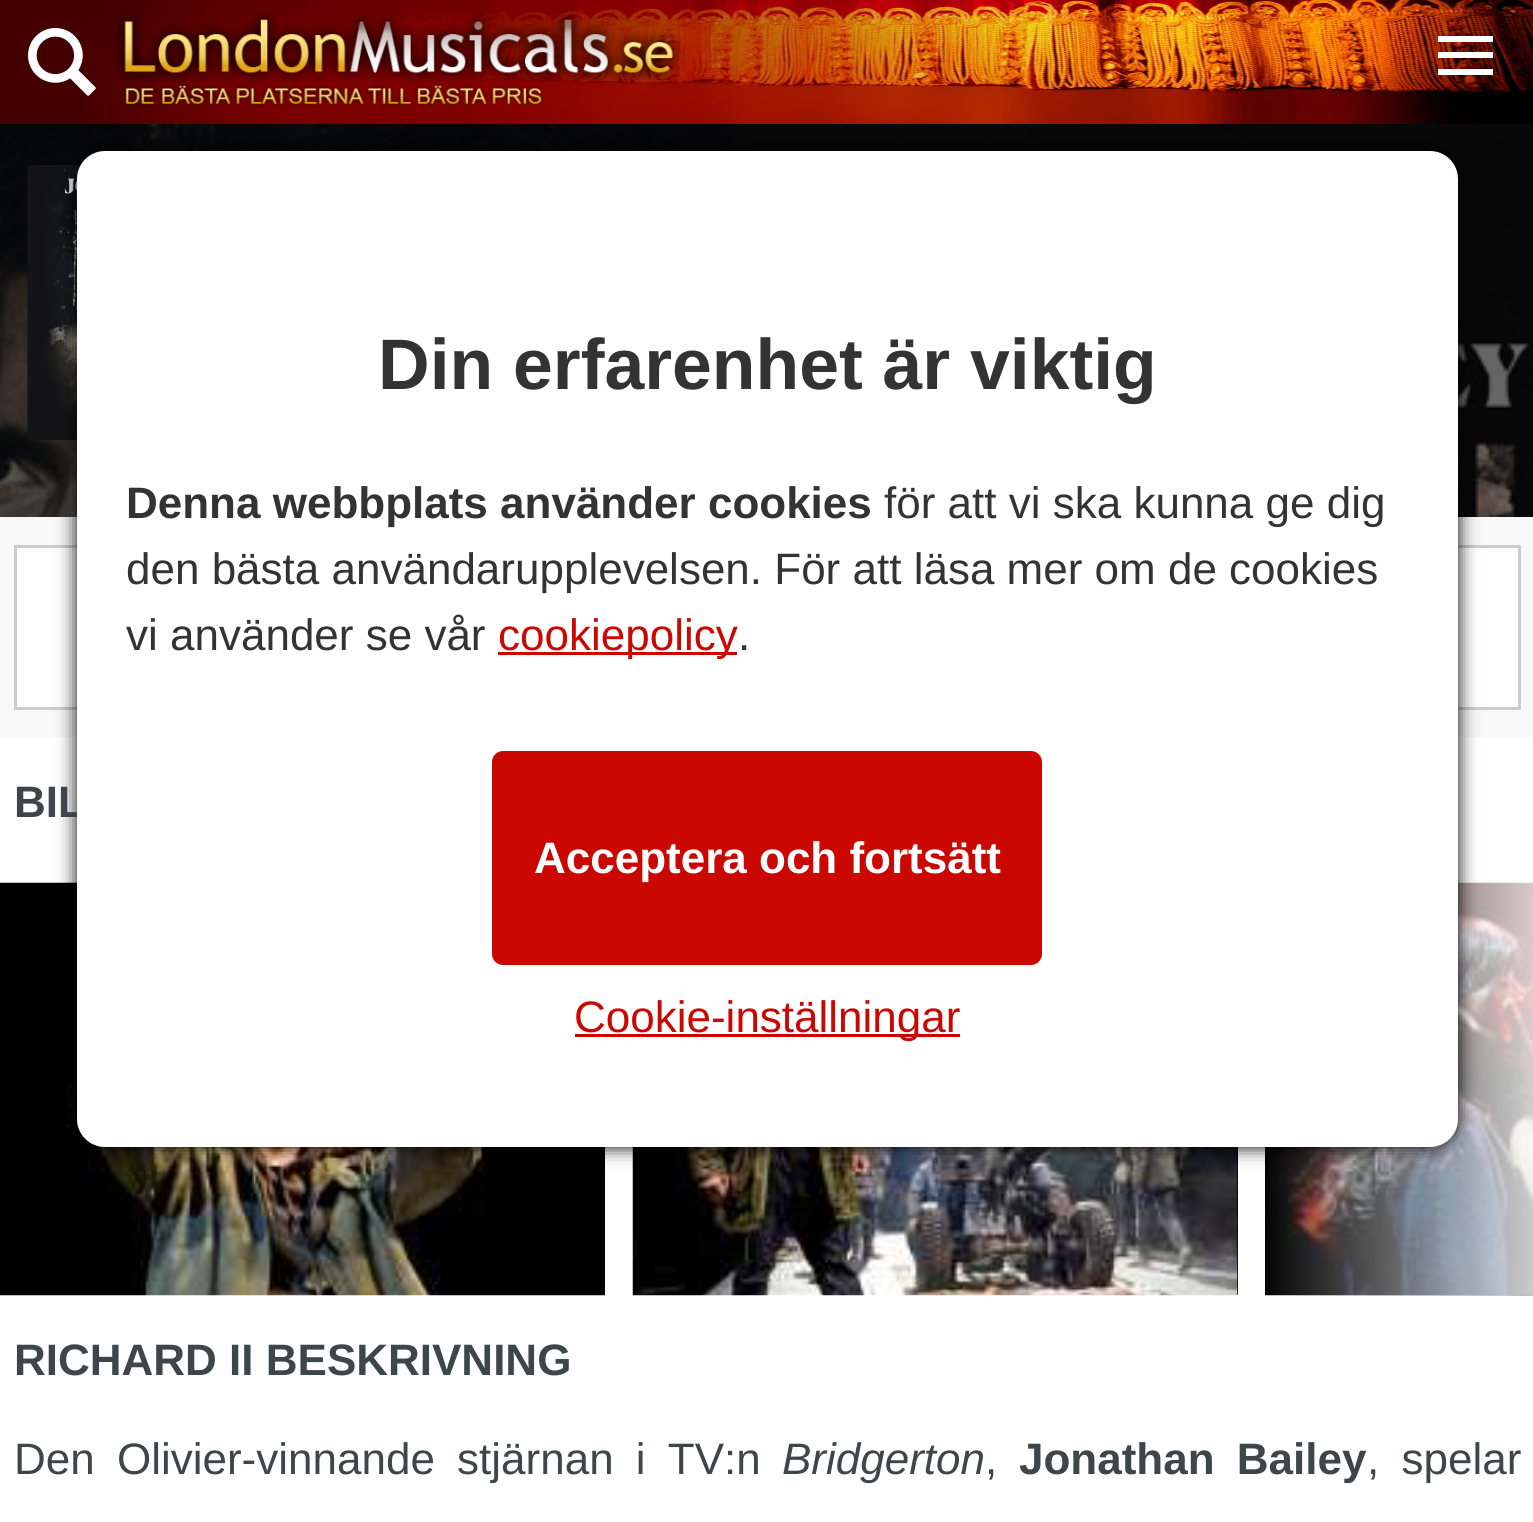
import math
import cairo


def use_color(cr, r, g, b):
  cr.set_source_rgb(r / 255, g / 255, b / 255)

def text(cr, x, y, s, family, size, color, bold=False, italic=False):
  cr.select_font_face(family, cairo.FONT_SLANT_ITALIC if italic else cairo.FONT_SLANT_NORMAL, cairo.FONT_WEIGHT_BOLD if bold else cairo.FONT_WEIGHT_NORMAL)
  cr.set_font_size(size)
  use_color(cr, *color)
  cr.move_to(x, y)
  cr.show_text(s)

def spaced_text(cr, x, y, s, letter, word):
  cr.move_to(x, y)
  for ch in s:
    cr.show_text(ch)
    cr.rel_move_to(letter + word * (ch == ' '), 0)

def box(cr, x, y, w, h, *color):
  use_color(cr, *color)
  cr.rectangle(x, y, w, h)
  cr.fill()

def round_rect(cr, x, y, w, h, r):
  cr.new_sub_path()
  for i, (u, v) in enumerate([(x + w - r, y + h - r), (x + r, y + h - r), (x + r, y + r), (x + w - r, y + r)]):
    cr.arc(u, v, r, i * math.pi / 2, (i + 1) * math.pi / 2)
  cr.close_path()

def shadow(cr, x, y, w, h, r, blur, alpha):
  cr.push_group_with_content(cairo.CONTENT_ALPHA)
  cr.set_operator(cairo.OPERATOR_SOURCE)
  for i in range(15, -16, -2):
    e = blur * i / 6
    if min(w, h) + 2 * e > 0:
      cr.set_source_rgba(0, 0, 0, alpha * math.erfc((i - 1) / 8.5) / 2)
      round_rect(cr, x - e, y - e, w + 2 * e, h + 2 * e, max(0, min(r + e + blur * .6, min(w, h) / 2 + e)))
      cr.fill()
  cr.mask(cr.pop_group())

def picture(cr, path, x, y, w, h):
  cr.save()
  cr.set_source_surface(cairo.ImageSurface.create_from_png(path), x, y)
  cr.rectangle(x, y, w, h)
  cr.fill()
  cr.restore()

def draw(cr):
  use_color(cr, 255, 255, 255)
  cr.paint()
  box(cr, 0, 0, 82, 124, 68, 0, 0)
  picture(cr, "img_02.png", 82, 0, 1451, 124)
  picture(cr, "img_01.png", 28, 28, 68, 68)
  picture(cr, "img_03.png", 114, 9, 570, 98)
  box(cr, 1438, 52, 55, 6, 255, 255, 255)
  box(cr, 1438, 36, 55, 6, 255, 255, 255)
  box(cr, 1438, 69, 55, 6, 255, 255, 255)
  picture(cr, "img_04.png", 0, 124, 1533, 393)
  cr.set_source_rgba(0, 0, 0, 0.6)
  cr.rectangle(0, 124, 1533, 393)
  cr.fill()
  picture(cr, "img_05.png", 27, 165, 54, 275)
  box(cr, 0, 517, 1533, 220, 248, 248, 248)
  use_color(cr, 255, 255, 255)
  cr.rectangle(15.5, 546.5, 1504, 162)
  cr.fill_preserve()
  use_color(cr, 204, 204, 204)
  cr.set_line_width(3)
  cr.stroke()
  picture(cr, "img_06.png", 0, 882, 605, 414)
  box(cr, 1237, 1147, 1, 148, 0, 0, 0)
  picture(cr, "img_07.png", 632, 1147, 606, 149)
  picture(cr, "img_08.png", 1265, 882, 268, 414)
  gradient = cairo.LinearGradient(1260, 1082, 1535, 1082)
  gradient.add_color_stop_rgba(0, 1, 1, 1, 0)
  gradient.add_color_stop_rgba(1, 1, 1, 1, 0.8)
  cr.set_source(gradient)
  cr.rectangle(1267, 882, 266, 413)
  cr.fill()
  use_color(cr, 0, 0, 0)
  shadow(cr, 77, 151, 1381, 996, 28, 9.5, 1)
  text(cr, 14, 817, "BIL", "Liberation Sans", 44, (63, 70, 73), bold=True)
  use_color(cr, 255, 255, 255)
  round_rect(cr, 77, 151, 1381, 996, 28)
  cr.fill()
  use_color(cr, 202, 8, 1)
  round_rect(cr, 492, 751, 550, 214, 11)
  cr.fill()
  text(cr, 534, 873, "Acceptera och fortsätt", "Liberation Sans", 44, (255, 255, 255), bold=True)
  box(cr, 575, 1034, 385, 3, 202, 8, 1)
  text(cr, 574, 1032, "Cookie-inställningar", "Liberation Sans", 44, (202, 8, 1))
  text(cr, 738, 650, ".", "Liberation Sans", 44, (51, 51, 51))
  box(cr, 498, 652, 239, 3, 202, 8, 1)
  text(cr, 498, 650, "cookiepolicy", "Liberation Sans", 44, (202, 8, 1))
  text(cr, 126, 650, "vi använder se vår", "Liberation Sans", 44, (51, 51, 51))
  text(cr, 126, 584, "den bästa användarupplevelsen. För att läsa mer om de cookies", "Liberation Sans", 44, (51, 51, 51))
  text(cr, 884, 518, "för att vi ska kunna ge dig", "Liberation Sans", 44, (51, 51, 51))
  text(cr, 126, 518, "Denna webbplats använder cookies", "Liberation Sans", 44, (51, 51, 51), bold=True)
  text(cr, 378, 389, "Din erfarenhet är viktig", "Liberation Sans", 71.5, (51, 51, 51), bold=True)
  text(cr, 14, 1375, "RICHARD II BESKRIVNING", "Liberation Sans", 44, (63, 70, 73), bold=True)
  cr.select_font_face("Liberation Sans")
  spaced_text(cr, 14, 1474, "Den Olivier-vinnande stjärnan i TV:n", 0, 10)
  text(cr, 782, 1474, "Bridgerton", "Liberation Sans", 44, (63, 70, 73), italic=True)
  text(cr, 985, 1474, ",", "Liberation Sans", 44, (63, 70, 73))
  cr.select_font_face("Liberation Sans", cairo.FONT_SLANT_NORMAL, cairo.FONT_WEIGHT_BOLD)
  spaced_text(cr, 1019, 1474, "Jonathan Bailey", 0, 10)
  cr.select_font_face("Liberation Sans")
  spaced_text(cr, 1367, 1474, ", spelar", 0, 10)


surface = cairo.ImageSurface(cairo.FORMAT_RGB24, 1533, 1522)
cr = cairo.Context(surface)
options = cairo.FontOptions()
options.set_hint_metrics(cairo.HINT_METRICS_OFF)
options.set_hint_style(cairo.HINT_STYLE_NONE)
cr.set_font_options(options)
cr.set_miter_limit(4)
draw(cr)
surface.write_to_png("out.png")
